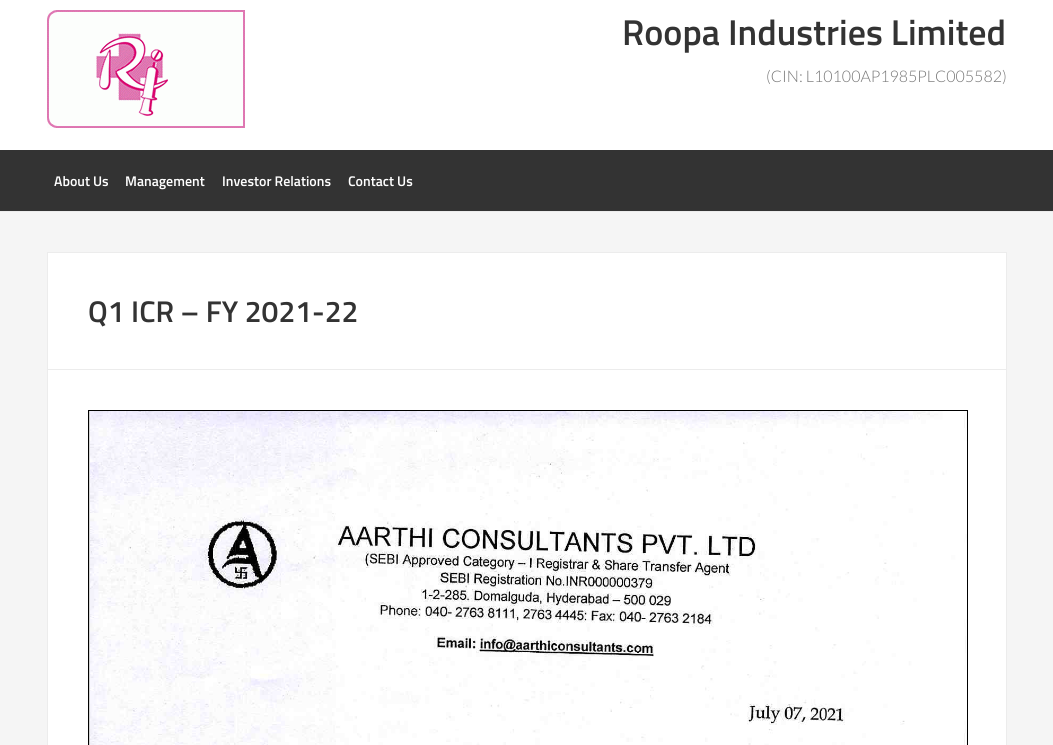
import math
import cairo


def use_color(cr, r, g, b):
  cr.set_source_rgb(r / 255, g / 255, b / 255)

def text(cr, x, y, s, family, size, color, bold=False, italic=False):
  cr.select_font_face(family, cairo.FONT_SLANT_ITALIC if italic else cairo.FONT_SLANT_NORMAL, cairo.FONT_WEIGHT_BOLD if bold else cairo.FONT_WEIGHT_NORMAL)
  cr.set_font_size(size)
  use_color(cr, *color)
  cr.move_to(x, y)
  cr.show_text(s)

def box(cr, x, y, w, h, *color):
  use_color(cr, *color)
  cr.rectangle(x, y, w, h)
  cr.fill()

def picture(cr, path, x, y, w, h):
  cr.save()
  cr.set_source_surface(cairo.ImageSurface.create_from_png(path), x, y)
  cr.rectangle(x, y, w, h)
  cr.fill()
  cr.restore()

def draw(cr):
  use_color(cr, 255, 255, 255)
  cr.paint()
  picture(cr, "img_01.png", 47, 10, 198, 118)
  box(cr, 0, 150, 1053, 61, 51, 51, 51)
  box(cr, 0, 212, 1053, 533, 245, 245, 245)
  box(cr, 0, 211, 1053, 1, 236, 236, 236)
  use_color(cr, 255, 255, 255)
  cr.rectangle(47.5, 252.5, 959, 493)
  cr.fill_preserve()
  use_color(cr, 236, 236, 236)
  cr.set_line_width(1)
  cr.stroke()
  box(cr, 48, 369, 958, 1, 236, 236, 236)
  box(cr, 89, 411, 1, 334, 211, 211, 211)
  cr.rectangle(88.5, 410.5, 879, 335)
  use_color(cr, 0, 0, 0)
  cr.stroke()
  picture(cr, "img_02.png", 90, 411, 877, 334)
  text(cr, 622, 45, "Roopa Industries Limited", "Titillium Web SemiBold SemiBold", 36, (51, 51, 51))
  text(cr, 766, 82, "(CIN: L10100AP1985PLC005582)", "Lato Light", 16, (119, 119, 119))
  text(cr, 54, 186, "About Us", "Titillium Web SemiBold SemiBold", 14, (255, 255, 255))
  text(cr, 125, 186, "Management", "Titillium Web SemiBold SemiBold", 14, (255, 255, 255))
  text(cr, 222, 186, "Investor Relations", "Titillium Web SemiBold SemiBold", 14, (255, 255, 255))
  text(cr, 348, 186, "Contact Us", "Titillium Web SemiBold SemiBold", 14, (255, 255, 255))
  text(cr, 88, 322, "Q1 ICR – FY 2021-22", "Titillium Web SemiBold SemiBold", 30, (51, 51, 51))


surface = cairo.ImageSurface(cairo.FORMAT_RGB24, 1053, 745)
cr = cairo.Context(surface)
options = cairo.FontOptions()
options.set_hint_metrics(cairo.HINT_METRICS_OFF)
options.set_hint_style(cairo.HINT_STYLE_NONE)
cr.set_font_options(options)
cr.set_miter_limit(4)
draw(cr)
surface.write_to_png("out.png")
